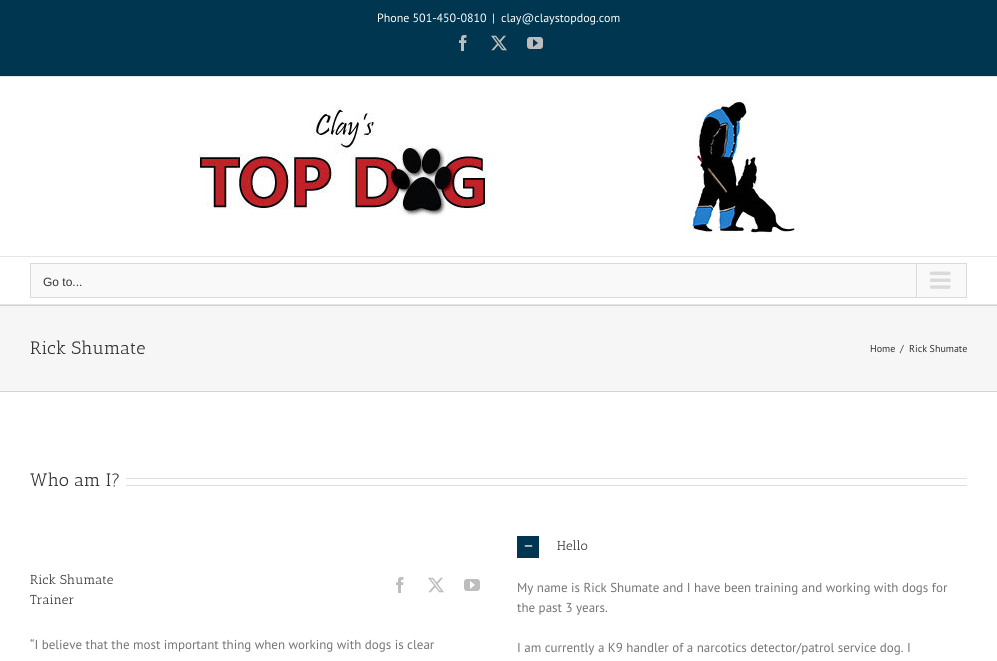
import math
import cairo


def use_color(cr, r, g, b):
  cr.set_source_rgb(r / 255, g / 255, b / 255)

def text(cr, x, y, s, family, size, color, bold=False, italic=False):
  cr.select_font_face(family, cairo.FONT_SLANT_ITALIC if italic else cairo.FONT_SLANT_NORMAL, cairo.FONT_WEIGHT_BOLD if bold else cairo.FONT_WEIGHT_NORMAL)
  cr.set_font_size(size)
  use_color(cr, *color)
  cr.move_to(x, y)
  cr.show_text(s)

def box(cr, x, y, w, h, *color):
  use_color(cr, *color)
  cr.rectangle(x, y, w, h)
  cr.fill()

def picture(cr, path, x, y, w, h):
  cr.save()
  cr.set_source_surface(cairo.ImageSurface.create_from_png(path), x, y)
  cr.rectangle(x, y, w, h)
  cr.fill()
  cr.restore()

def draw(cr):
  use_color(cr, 0, 54, 79)
  cr.paint()
  box(cr, 0, 76, 997, 1, 229, 229, 229)
  picture(cr, "img_01.png", 459, 35, 8, 16)
  picture(cr, "img_02.png", 491, 35, 16, 16)
  picture(cr, "img_03.png", 527, 37, 16, 12)
  box(cr, 0, 77, 997, 179, 255, 255, 255)
  box(cr, 0, 256, 997, 1, 229, 229, 229)
  picture(cr, "img_04.png", 199, 98, 600, 135)
  box(cr, 0, 257, 997, 47, 255, 255, 255)
  box(cr, 0, 304, 997, 1, 229, 229, 229)
  use_color(cr, 249, 249, 249)
  cr.rectangle(30.5, 263.5, 936, 34)
  cr.fill_preserve()
  use_color(cr, 218, 218, 218)
  cr.set_line_width(1)
  cr.stroke()
  box(cr, 916, 264, 1, 33, 218, 218, 218)
  picture(cr, "img_05.png", 930, 271, 21, 18)
  box(cr, 0, 306, 997, 85, 246, 246, 246)
  box(cr, 0, 305, 997, 1, 210, 211, 212)
  box(cr, 0, 391, 997, 1, 210, 211, 212)
  box(cr, 0, 392, 997, 269, 255, 255, 255)
  box(cr, 126, 478, 841, 1, 224, 222, 222)
  box(cr, 126, 485, 841, 1, 224, 222, 222)
  picture(cr, "img_06.png", 396, 577, 8, 16)
  picture(cr, "img_07.png", 428, 577, 16, 16)
  picture(cr, "img_08.png", 464, 579, 16, 12)
  box(cr, 517, 536, 22, 22, 0, 54, 79)
  picture(cr, "img_09.png", 524, 545, 9, 2)
  text(cr, 377, 22, "Phone 501-450-0810", "PT Sans", 12, (255, 255, 255))
  text(cr, 492, 22, "|", "PT Sans", 12, (255, 255, 255))
  text(cr, 501, 22, "clay@claystopdog.com", "PT Sans", 12, (255, 255, 255))
  text(cr, 43, 286, "Go to...", "Liberation Sans", 12, (51, 51, 51))
  text(cr, 30, 354, "Rick Shumate", "Antic Slab", 18, (51, 51, 51))
  text(cr, 870, 352, "Home", "PT Sans", 10, (51, 51, 51))
  text(cr, 900, 352, "/", "PT Sans", 10, (51, 51, 51))
  text(cr, 909, 352, "Rick Shumate", "PT Sans", 10, (51, 51, 51))
  text(cr, 30, 486, "Who am I?", "Antic Slab", 18, (51, 51, 51))
  text(cr, 30, 584, "Rick Shumate", "Antic Slab", 13, (51, 51, 51))
  text(cr, 30, 604, "Trainer", "Antic Slab", 13, (51, 51, 51))
  text(cr, 30, 649, "“I believe that the most important thing when working with dogs is clear", "PT Sans", 13, (116, 116, 116))
  text(cr, 557, 550, "Hello", "Antic Slab", 13, (51, 51, 51))
  text(cr, 517, 592, "My name is Rick Shumate and I have been training and working with dogs for", "PT Sans", 13, (116, 116, 116))
  text(cr, 517, 612, "the past 3 years.", "PT Sans", 13, (116, 116, 116))
  text(cr, 517, 652, "I am currently a K9 handler of a narcotics detector/patrol service dog. I", "PT Sans", 13, (116, 116, 116))


surface = cairo.ImageSurface(cairo.FORMAT_RGB24, 997, 661)
cr = cairo.Context(surface)
options = cairo.FontOptions()
options.set_hint_metrics(cairo.HINT_METRICS_OFF)
options.set_hint_style(cairo.HINT_STYLE_NONE)
cr.set_font_options(options)
cr.set_miter_limit(4)
draw(cr)
surface.write_to_png("out.png")
